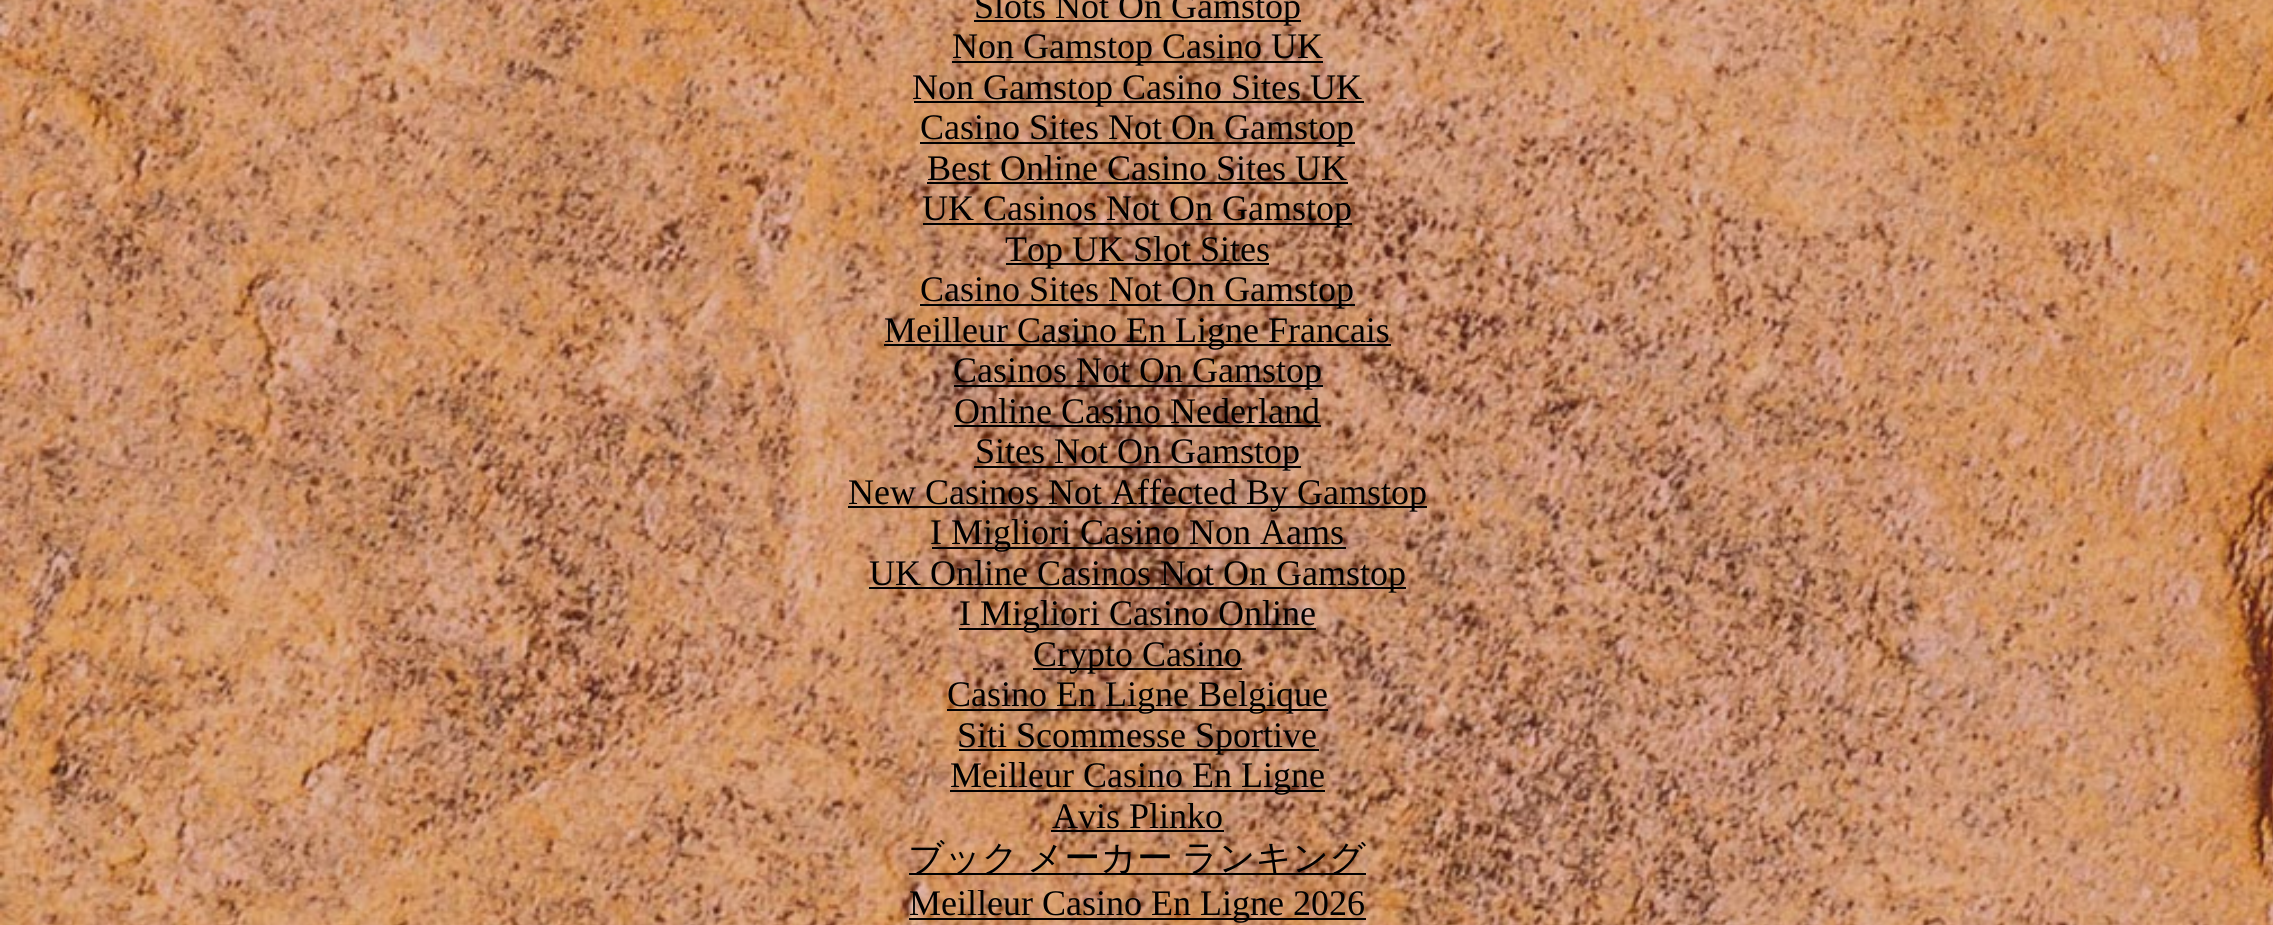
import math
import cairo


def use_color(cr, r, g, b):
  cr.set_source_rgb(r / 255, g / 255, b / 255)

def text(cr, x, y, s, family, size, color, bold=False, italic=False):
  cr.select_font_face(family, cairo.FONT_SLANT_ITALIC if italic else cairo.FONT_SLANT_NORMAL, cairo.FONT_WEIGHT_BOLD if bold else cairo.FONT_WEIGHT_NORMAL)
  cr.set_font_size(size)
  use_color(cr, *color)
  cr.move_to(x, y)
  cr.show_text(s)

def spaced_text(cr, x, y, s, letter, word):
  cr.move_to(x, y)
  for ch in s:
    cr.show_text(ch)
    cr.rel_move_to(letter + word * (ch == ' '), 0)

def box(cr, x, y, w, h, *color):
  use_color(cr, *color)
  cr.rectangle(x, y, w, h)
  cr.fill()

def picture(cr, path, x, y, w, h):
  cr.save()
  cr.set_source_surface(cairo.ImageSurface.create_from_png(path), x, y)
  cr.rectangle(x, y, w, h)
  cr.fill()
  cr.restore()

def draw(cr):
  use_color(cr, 255, 255, 255)
  cr.paint()
  picture(cr, "img_01.png", 0, 0, 2273, 925)
  box(cr, 974, 20, 327, 2, 0, 0, 0)
  box(cr, 952, 61, 371, 2, 0, 0, 0)
  box(cr, 914, 101, 450, 2, 0, 0, 0)
  box(cr, 920, 142, 435, 2, 0, 0, 0)
  box(cr, 927, 182, 421, 2, 0, 0, 0)
  box(cr, 923, 223, 429, 2, 0, 0, 0)
  box(cr, 1006, 263, 263, 2, 0, 0, 0)
  box(cr, 920, 304, 435, 2, 0, 0, 0)
  box(cr, 884, 344, 507, 2, 0, 0, 0)
  box(cr, 954, 385, 369, 2, 0, 0, 0)
  box(cr, 954, 425, 367, 2, 0, 0, 0)
  box(cr, 974, 466, 327, 2, 0, 0, 0)
  box(cr, 848, 506, 579, 2, 0, 0, 0)
  box(cr, 932, 547, 414, 2, 0, 0, 0)
  box(cr, 869, 587, 537, 2, 0, 0, 0)
  box(cr, 959, 628, 357, 2, 0, 0, 0)
  box(cr, 1033, 668, 209, 2, 0, 0, 0)
  box(cr, 947, 709, 381, 2, 0, 0, 0)
  box(cr, 959, 749, 360, 2, 0, 0, 0)
  box(cr, 950, 790, 375, 2, 0, 0, 0)
  box(cr, 1051, 830, 173, 2, 0, 0, 0)
  box(cr, 909, 873, 457, 2, 0, 0, 0)
  box(cr, 909, 918, 457, 2, 0, 0, 0)
  text(cr, 974, 18, "Slots Not On Gamstop", "Liberation Serif", 36, (0, 0, 0))
  text(cr, 952, 58, "Non Gamstop Casino UK", "Liberation Serif", 36, (0, 0, 0))
  text(cr, 912, 99, "Non Gamstop Casino Sites UK", "Liberation Serif", 36, (0, 0, 0))
  text(cr, 920, 139, "Casino Sites Not On Gamstop", "Liberation Serif", 36, (0, 0, 0))
  text(cr, 927, 180, "Best Online Casino Sites UK", "Liberation Serif", 36, (0, 0, 0))
  text(cr, 922, 220, "UK Casinos Not On Gamstop", "Liberation Serif", 36, (0, 0, 0))
  text(cr, 1005, 261, "Top UK Slot Sites", "Liberation Serif", 36, (0, 0, 0))
  text(cr, 920, 301, "Casino Sites Not On Gamstop", "Liberation Serif", 36, (0, 0, 0))
  text(cr, 884, 342, "Meilleur Casino En Ligne Francais", "Liberation Serif", 36, (0, 0, 0))
  text(cr, 953, 382, "Casinos Not On Gamstop", "Liberation Serif", 36, (0, 0, 0))
  text(cr, 954, 423, "Online Casino Nederland", "Liberation Serif", 36, (0, 0, 0))
  text(cr, 975, 463, "Sites Not On Gamstop", "Liberation Serif", 36, (0, 0, 0))
  text(cr, 848, 504, "New Casinos Not Affected By Gamstop", "Liberation Serif", 36, (0, 0, 0))
  text(cr, 930, 544, "I Migliori Casino Non Aams", "Liberation Serif", 36, (0, 0, 0))
  text(cr, 869, 585, "UK Online Casinos Not On Gamstop", "Liberation Serif", 36, (0, 0, 0))
  text(cr, 959, 625, "I Migliori Casino Online", "Liberation Serif", 36, (0, 0, 0))
  text(cr, 1033, 666, "Crypto Casino", "Liberation Serif", 36, (0, 0, 0))
  text(cr, 947, 706, "Casino En Ligne Belgique", "Liberation Serif", 36, (0, 0, 0))
  text(cr, 957, 747, "Siti Scommesse Sportive", "Liberation Serif", 36, (0, 0, 0))
  text(cr, 950, 787, "Meilleur Casino En Ligne", "Liberation Serif", 36, (0, 0, 0))
  text(cr, 1052, 828, "Avis Plinko", "Liberation Serif", 36, (0, 0, 0))
  cr.select_font_face("WenQuanYi Zen Hei Medium")
  spaced_text(cr, 908, 870, "ブック メーカー ランキング", 0, -2)
  text(cr, 909, 915, "Meilleur Casino En Ligne 2026", "Liberation Serif", 36, (0, 0, 0))


surface = cairo.ImageSurface(cairo.FORMAT_RGB24, 2273, 925)
cr = cairo.Context(surface)
options = cairo.FontOptions()
options.set_hint_metrics(cairo.HINT_METRICS_OFF)
options.set_hint_style(cairo.HINT_STYLE_NONE)
cr.set_font_options(options)
cr.set_miter_limit(4)
draw(cr)
surface.write_to_png("out.png")
